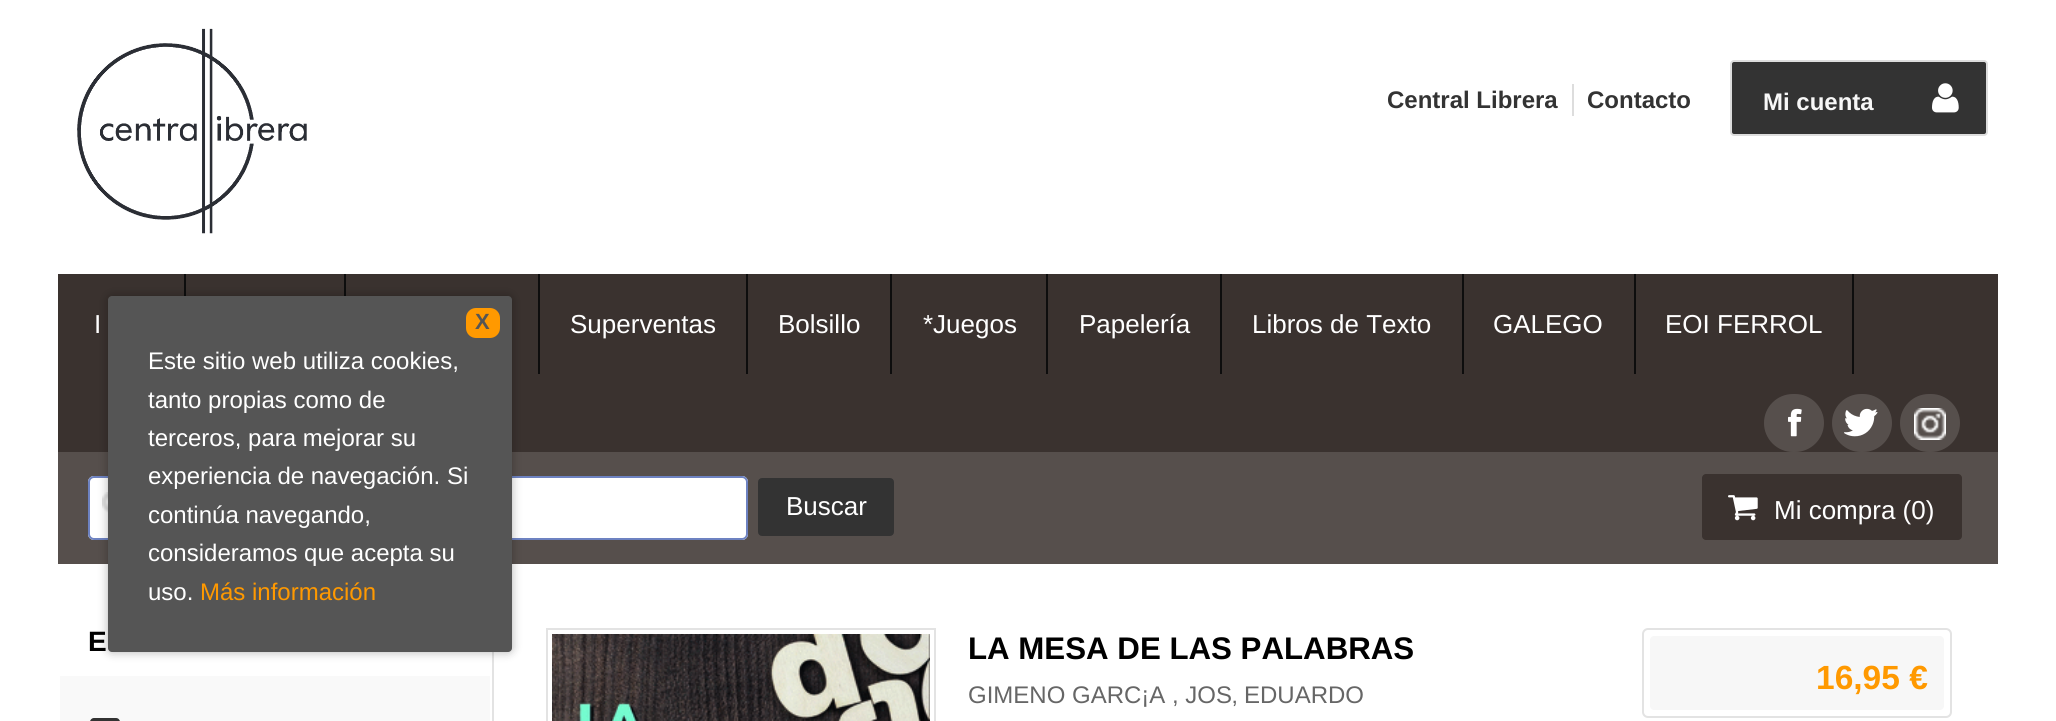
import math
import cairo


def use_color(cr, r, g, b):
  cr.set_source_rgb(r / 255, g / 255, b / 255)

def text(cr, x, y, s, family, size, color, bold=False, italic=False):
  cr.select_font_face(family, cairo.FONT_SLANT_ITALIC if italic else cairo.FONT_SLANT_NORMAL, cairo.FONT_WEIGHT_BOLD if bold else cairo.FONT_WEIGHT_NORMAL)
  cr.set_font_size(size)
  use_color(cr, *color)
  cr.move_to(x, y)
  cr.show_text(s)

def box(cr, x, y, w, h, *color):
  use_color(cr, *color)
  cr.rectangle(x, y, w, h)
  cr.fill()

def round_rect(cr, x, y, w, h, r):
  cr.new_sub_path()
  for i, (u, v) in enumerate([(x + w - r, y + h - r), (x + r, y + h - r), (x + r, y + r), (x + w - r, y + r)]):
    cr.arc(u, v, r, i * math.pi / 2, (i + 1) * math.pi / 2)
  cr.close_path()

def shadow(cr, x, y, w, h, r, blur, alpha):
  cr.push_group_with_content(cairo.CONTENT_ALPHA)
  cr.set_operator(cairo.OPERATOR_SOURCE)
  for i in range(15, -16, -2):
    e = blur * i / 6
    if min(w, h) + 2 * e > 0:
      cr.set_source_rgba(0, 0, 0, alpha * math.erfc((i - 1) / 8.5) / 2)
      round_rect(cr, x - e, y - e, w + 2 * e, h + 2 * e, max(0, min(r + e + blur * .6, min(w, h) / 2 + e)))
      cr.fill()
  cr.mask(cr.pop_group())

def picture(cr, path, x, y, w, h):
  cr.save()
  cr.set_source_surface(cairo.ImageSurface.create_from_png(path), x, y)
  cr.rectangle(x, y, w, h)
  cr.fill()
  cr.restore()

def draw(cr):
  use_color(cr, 255, 255, 255)
  cr.paint()
  picture(cr, "img_01.png", 77, 28, 230, 206)
  box(cr, 1572, 84, 2, 32, 221, 221, 221)
  use_color(cr, 51, 51, 51)
  round_rect(cr, 1731, 61, 256, 74, 3)
  cr.fill_preserve()
  use_color(cr, 221, 221, 221)
  cr.stroke()
  picture(cr, "img_02.png", 1932, 83, 27, 30)
  box(cr, 58, 274, 1940, 178, 58, 50, 47)
  box(cr, 184, 274, 2, 22, 13, 13, 13)
  box(cr, 344, 274, 2, 22, 13, 13, 13)
  box(cr, 538, 274, 2, 100, 13, 13, 13)
  box(cr, 746, 274, 2, 100, 13, 13, 13)
  box(cr, 890, 274, 2, 100, 13, 13, 13)
  box(cr, 1046, 274, 2, 100, 13, 13, 13)
  box(cr, 1220, 274, 2, 100, 13, 13, 13)
  box(cr, 1462, 274, 2, 100, 13, 13, 13)
  box(cr, 1634, 274, 2, 100, 13, 13, 13)
  box(cr, 1852, 274, 2, 100, 13, 13, 13)
  use_color(cr, 86, 79, 76)
  round_rect(cr, 1764, 394, 60, 58, 29)
  cr.fill()
  picture(cr, "img_03.png", 1788, 408, 14, 29)
  round_rect(cr, 1832, 394, 60, 58, 29)
  cr.fill()
  picture(cr, "img_04.png", 1844, 408, 34, 29)
  round_rect(cr, 1900, 394, 60, 58, 29)
  cr.fill()
  picture(cr, "img_05.png", 1914, 408, 32, 32)
  box(cr, 58, 452, 1940, 112, 86, 79, 76)
  use_color(cr, 255, 255, 255)
  round_rect(cr, 88, 476, 660, 64, 6)
  cr.fill()
  picture(cr, "img_06.png", 102, 492, 6, 21)
  round_rect(cr, 89, 477, 658, 62, 5)
  use_color(cr, 109, 130, 193)
  cr.stroke()
  use_color(cr, 51, 51, 51)
  round_rect(cr, 759, 479, 134, 56, 3)
  cr.fill_preserve()
  cr.stroke()
  use_color(cr, 58, 50, 47)
  round_rect(cr, 1702, 474, 260, 66, 4)
  cr.fill()
  picture(cr, "img_07.png", 1728, 495, 30, 26)
  box(cr, 492, 652, 2, 69, 227, 227, 227)
  use_color(cr, 0, 0, 0)
  shadow(cr, 108, 296, 404, 356, 4, 5, 0.3)
  use_color(cr, 85, 85, 85)
  round_rect(cr, 108, 296, 404, 356, 4)
  cr.fill()
  use_color(cr, 255, 153, 0)
  round_rect(cr, 466, 308, 34, 30, 10)
  cr.fill()
  box(cr, 60, 676, 430, 45, 249, 249, 249)
  use_color(cr, 51, 51, 51)
  round_rect(cr, 90, 718, 30, 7, 4)
  cr.fill()
  cr.rectangle(547, 629, 388, 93)
  use_color(cr, 227, 227, 227)
  cr.stroke()
  picture(cr, "img_08.png", 552, 634, 378, 87)
  round_rect(cr, 1643, 629, 308, 88, 5)
  cr.stroke()
  use_color(cr, 247, 247, 247)
  round_rect(cr, 1650, 636, 294, 74, 4)
  cr.fill()
  text(cr, 1387, 108, "Central Librera", "Liberation Sans", 24, (51, 51, 51), bold=True)
  text(cr, 1587, 108, "Contacto", "Liberation Sans", 24, (51, 51, 51), bold=True)
  text(cr, 1763, 110, "Mi cuenta", "Liberation Sans", 24, (247, 247, 247), bold=True)
  text(cr, 94, 333, "I", "Liberation Sans", 26, (255, 255, 255))
  text(cr, 570, 333, "Superventas", "Liberation Sans", 26, (255, 255, 255))
  text(cr, 778, 333, "Bolsillo", "Liberation Sans", 26, (255, 255, 255))
  text(cr, 923, 333, "*Juegos", "Liberation Sans", 26, (255, 255, 255))
  text(cr, 1079, 333, "Papelería", "Liberation Sans", 26, (255, 255, 255))
  text(cr, 1252, 333, "Libros de Texto", "Liberation Sans", 26, (255, 255, 255))
  text(cr, 1493, 333, "GALEGO", "Liberation Sans", 26, (255, 255, 255))
  text(cr, 1665, 333, "EOI FERROL", "Liberation Sans", 26, (255, 255, 255))
  text(cr, 786, 515, "Buscar", "Liberation Sans", 26, (255, 255, 255))
  text(cr, 1774, 519, "Mi compra (0)", "Liberation Sans", 26, (255, 255, 255))
  text(cr, 475, 329, "X", "Liberation Sans", 22, (85, 85, 85), bold=True)
  text(cr, 148, 369, "Este sitio web utiliza cookies,", "Liberation Sans", 24, (255, 255, 255))
  text(cr, 148, 408, "tanto propias como de", "Liberation Sans", 24, (255, 255, 255))
  text(cr, 148, 446, "terceros, para mejorar su", "Liberation Sans", 24, (255, 255, 255))
  text(cr, 148, 484, "experiencia de navegación. Si", "Liberation Sans", 24, (255, 255, 255))
  text(cr, 148, 523, "continúa navegando,", "Liberation Sans", 24, (255, 255, 255))
  text(cr, 148, 561, "consideramos que acepta su", "Liberation Sans", 24, (255, 255, 255))
  text(cr, 148, 600, "uso.", "Liberation Sans", 24, (255, 255, 255))
  text(cr, 200, 600, "Más información", "Liberation Sans", 24, (255, 153, 0))
  text(cr, 88, 651, "E", "Liberation Sans", 28, (0, 0, 0), bold=True)
  text(cr, 968, 659, "LA MESA DE LAS PALABRAS", "Liberation Sans", 31.25, (0, 0, 0), bold=True)
  text(cr, 968, 703, "GIMENO GARC¡A , JOS‚ EDUARDO", "Liberation Sans", 24, (102, 102, 102))
  text(cr, 1816, 689, "16,95 €", "Liberation Sans", 33.5, (255, 153, 0), bold=True)


surface = cairo.ImageSurface(cairo.FORMAT_RGB24, 2056, 721)
cr = cairo.Context(surface)
options = cairo.FontOptions()
options.set_hint_metrics(cairo.HINT_METRICS_OFF)
options.set_hint_style(cairo.HINT_STYLE_NONE)
cr.set_font_options(options)
cr.set_miter_limit(4)
draw(cr)
surface.write_to_png("out.png")
